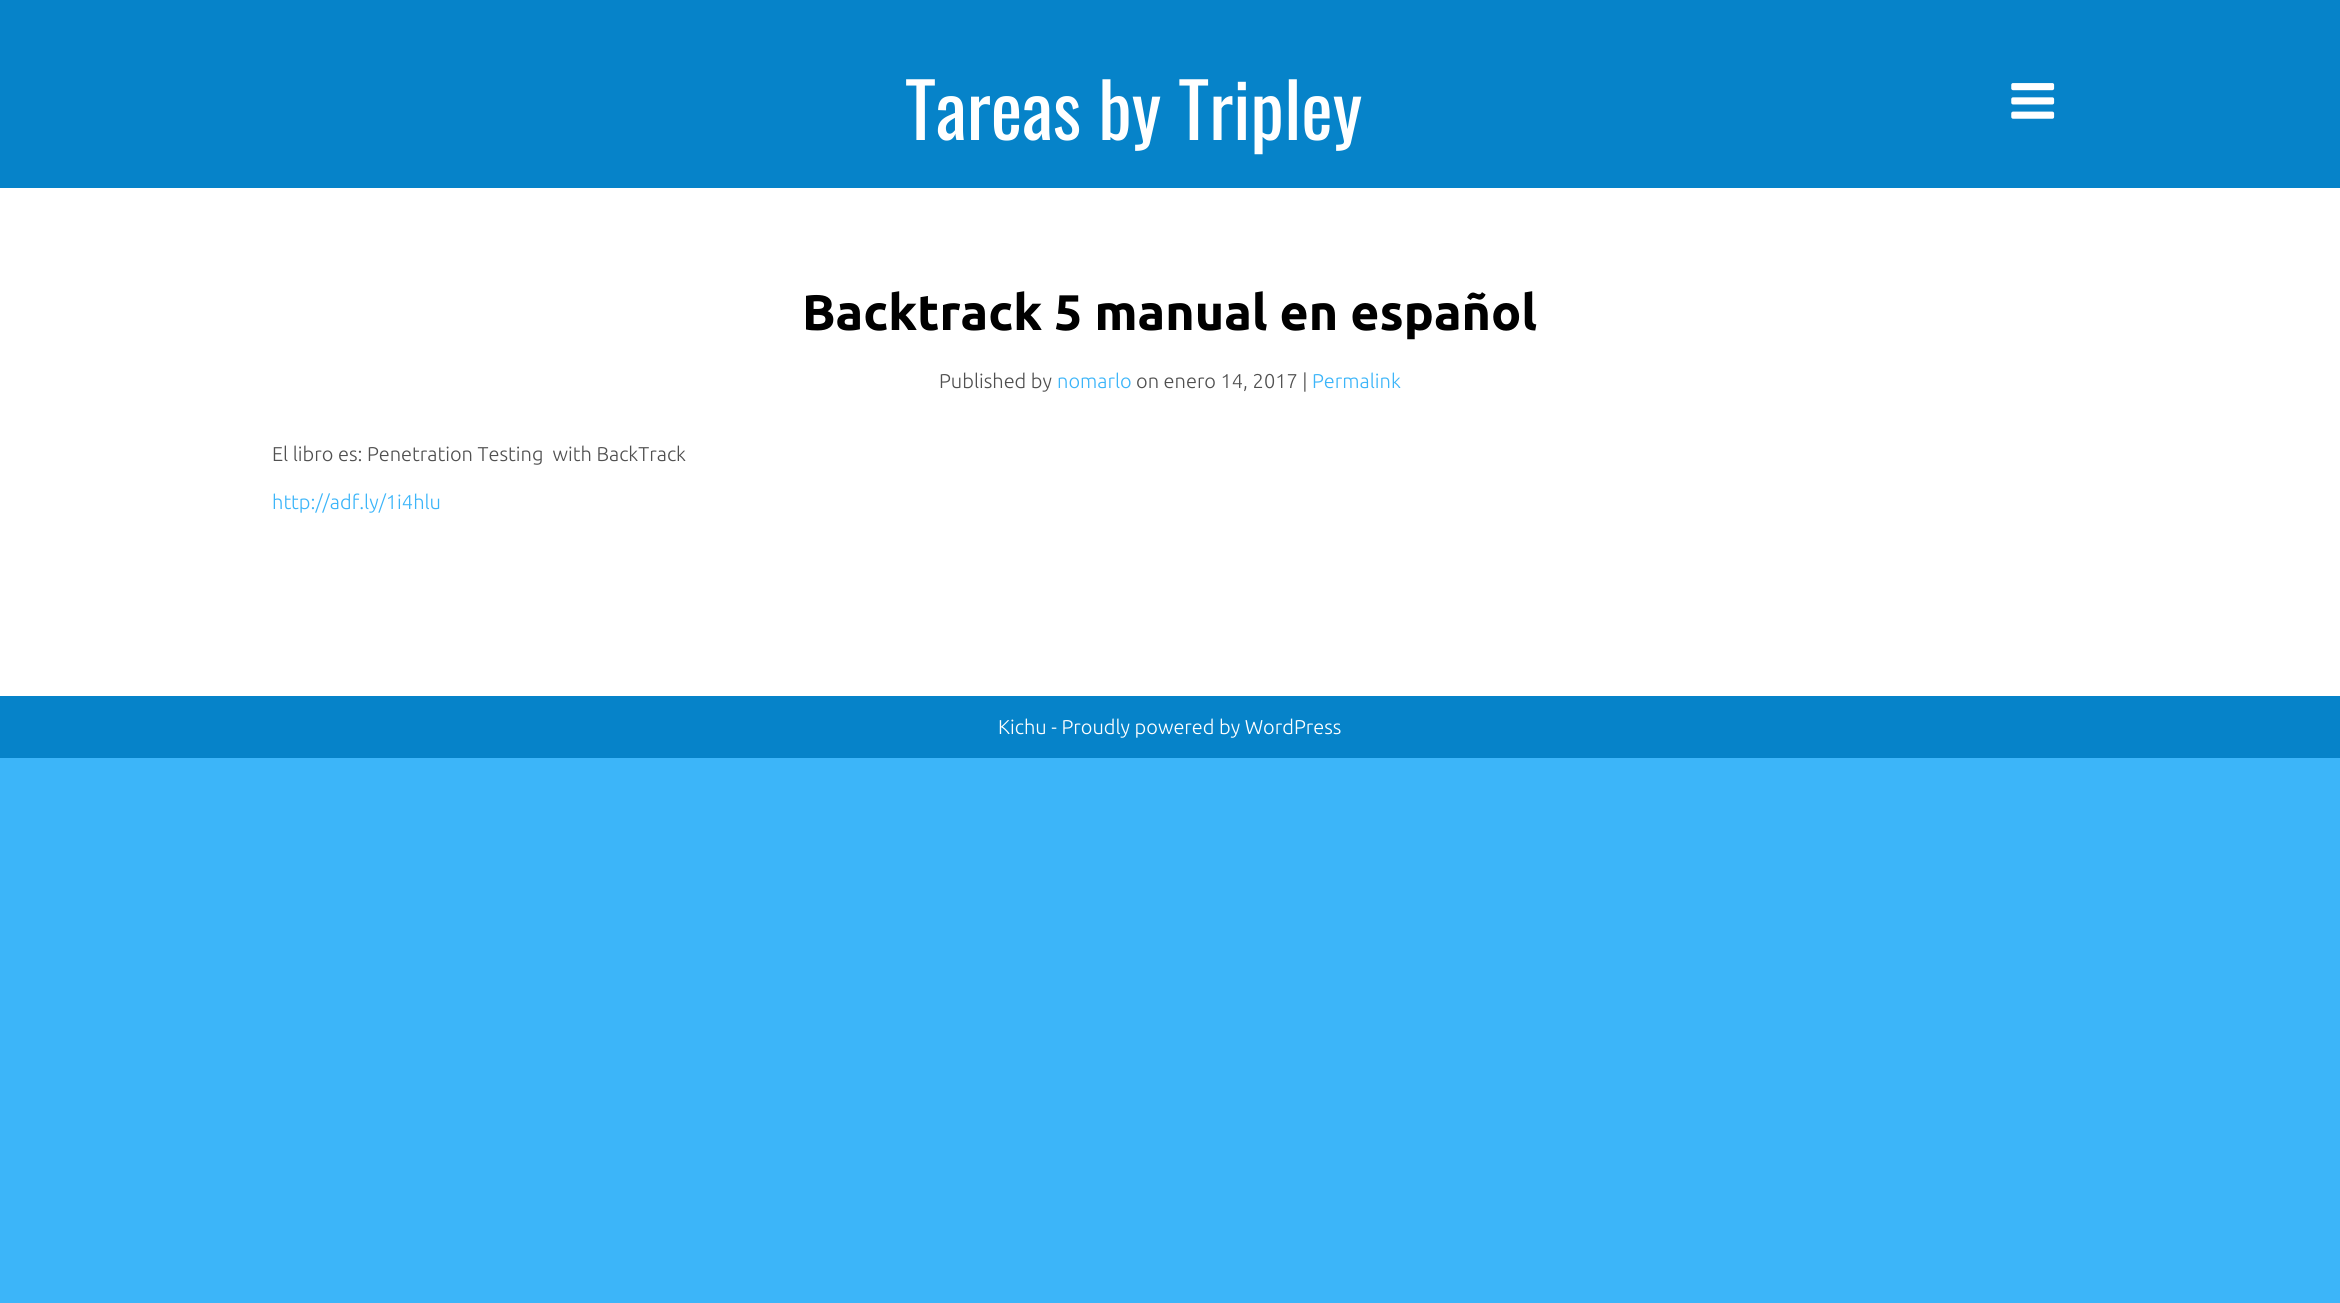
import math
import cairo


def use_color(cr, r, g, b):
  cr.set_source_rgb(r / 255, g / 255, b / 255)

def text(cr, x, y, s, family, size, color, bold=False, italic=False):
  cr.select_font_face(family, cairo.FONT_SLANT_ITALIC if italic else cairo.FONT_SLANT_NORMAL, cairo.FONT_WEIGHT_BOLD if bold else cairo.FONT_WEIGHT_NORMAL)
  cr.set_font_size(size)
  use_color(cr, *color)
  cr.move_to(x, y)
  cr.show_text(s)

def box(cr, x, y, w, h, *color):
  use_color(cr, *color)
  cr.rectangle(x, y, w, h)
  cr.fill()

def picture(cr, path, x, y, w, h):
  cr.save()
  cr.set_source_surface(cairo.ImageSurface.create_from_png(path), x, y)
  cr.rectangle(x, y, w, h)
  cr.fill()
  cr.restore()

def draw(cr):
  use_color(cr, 60, 181, 249)
  cr.paint()
  box(cr, 0, 0, 2340, 188, 6, 131, 201)
  picture(cr, "img_01.png", 2011, 83, 44, 36)
  box(cr, 0, 188, 2340, 508, 255, 255, 255)
  box(cr, 0, 696, 2340, 62, 6, 131, 201)
  text(cr, 905, 140, "Tareas by Tripley", "Oswald", 75, (255, 255, 255))
  text(cr, 802, 330, "Backtrack 5 manual en español", "Ubuntu", 50, (0, 0, 0), bold=True)
  text(cr, 939, 388, "Published by", "Ubuntu Light", 20, (80, 80, 80))
  text(cr, 1057, 388, "nomarlo", "Ubuntu Light", 20, (60, 181, 249))
  text(cr, 1136, 388, "on enero 14, 2017 |", "Ubuntu Light", 20, (80, 80, 80))
  text(cr, 1312, 388, "Permalink", "Ubuntu Light", 20, (60, 181, 249))
  text(cr, 272, 461, "El libro es: Penetration Testing  with BackTrack", "Ubuntu Light", 20, (80, 80, 80))
  text(cr, 272, 509, "http://adf.ly/1i4hlu", "Ubuntu Light", 20, (60, 181, 249))
  text(cr, 998, 734, "Kichu - Proudly powered by WordPress", "Ubuntu Light", 20, (255, 255, 255))


surface = cairo.ImageSurface(cairo.FORMAT_RGB24, 2340, 1303)
cr = cairo.Context(surface)
options = cairo.FontOptions()
options.set_hint_metrics(cairo.HINT_METRICS_OFF)
options.set_hint_style(cairo.HINT_STYLE_NONE)
cr.set_font_options(options)
cr.set_miter_limit(4)
draw(cr)
surface.write_to_png("out.png")
